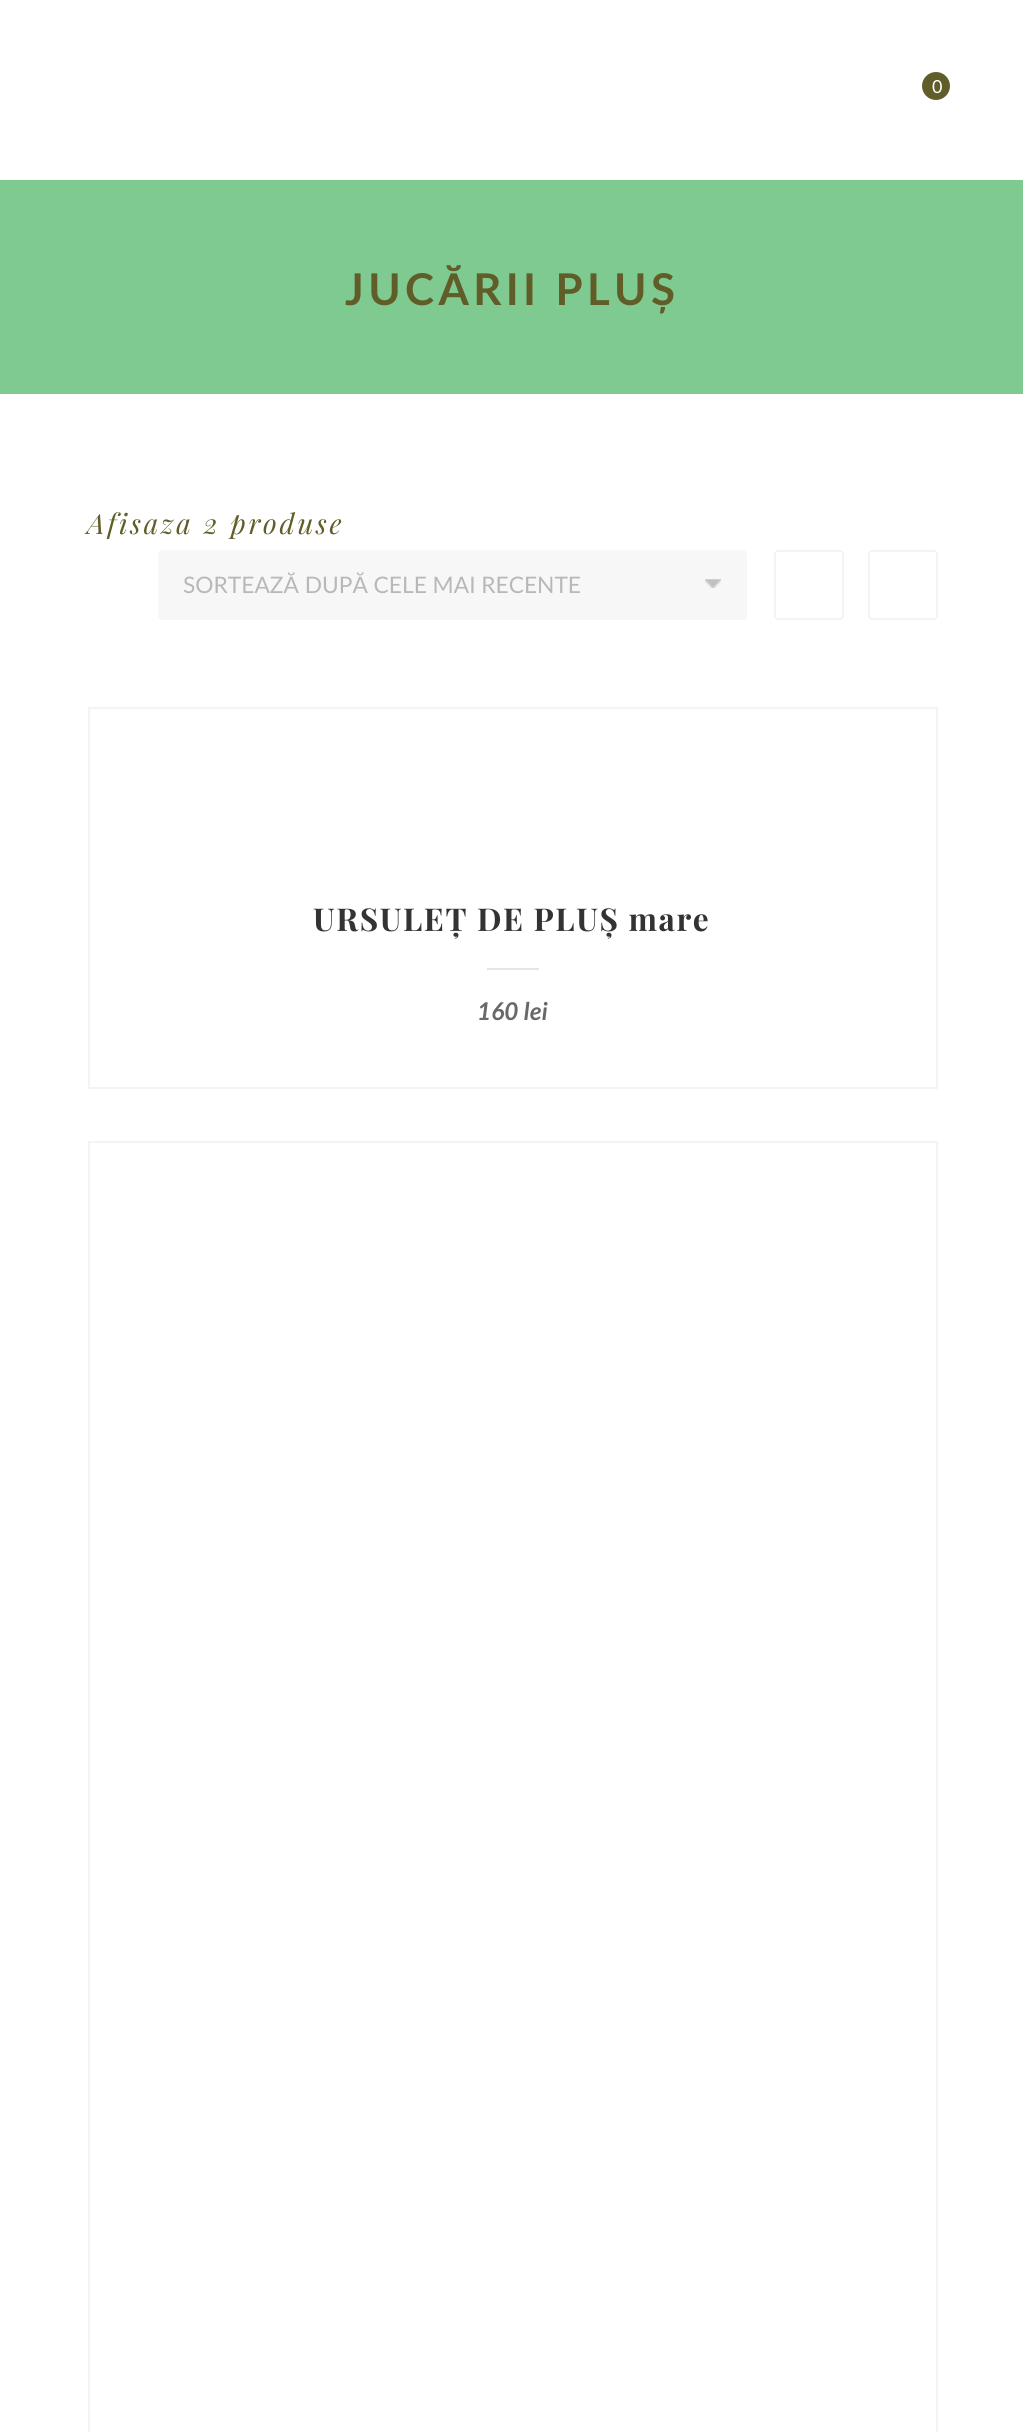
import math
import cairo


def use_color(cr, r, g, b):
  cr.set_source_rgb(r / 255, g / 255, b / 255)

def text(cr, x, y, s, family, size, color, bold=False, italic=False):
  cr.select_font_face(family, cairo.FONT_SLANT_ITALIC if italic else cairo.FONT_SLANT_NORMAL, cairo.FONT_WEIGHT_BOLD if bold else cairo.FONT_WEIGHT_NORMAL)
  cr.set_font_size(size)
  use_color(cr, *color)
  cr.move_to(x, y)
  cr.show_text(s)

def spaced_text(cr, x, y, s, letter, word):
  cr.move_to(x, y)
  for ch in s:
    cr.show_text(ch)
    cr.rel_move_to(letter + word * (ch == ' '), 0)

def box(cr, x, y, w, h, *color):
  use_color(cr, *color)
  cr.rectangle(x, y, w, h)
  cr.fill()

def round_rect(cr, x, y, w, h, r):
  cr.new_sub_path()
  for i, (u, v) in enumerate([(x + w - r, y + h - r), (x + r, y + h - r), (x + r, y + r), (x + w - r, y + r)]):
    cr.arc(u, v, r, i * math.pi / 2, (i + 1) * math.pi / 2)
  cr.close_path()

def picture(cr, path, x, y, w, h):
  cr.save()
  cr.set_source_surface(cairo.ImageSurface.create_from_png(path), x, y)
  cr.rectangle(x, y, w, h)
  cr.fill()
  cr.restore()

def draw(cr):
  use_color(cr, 255, 255, 255)
  cr.paint()
  use_color(cr, 96, 93, 41)
  cr.arc(936, 86, 14, 0, 2 * math.pi)
  cr.fill()
  box(cr, 0, 180, 1023, 214, 127, 202, 144)
  use_color(cr, 248, 247, 247)
  round_rect(cr, 158, 550, 589, 70, 4)
  cr.fill()
  picture(cr, "img_01.png", 705, 579, 16, 9)
  round_rect(cr, 775, 551, 68, 68, 3)
  use_color(cr, 244, 244, 244)
  cr.stroke()
  round_rect(cr, 869, 551, 68, 68, 3)
  cr.stroke()
  cr.rectangle(89, 708, 848, 380)
  cr.stroke()
  box(cr, 487, 968, 52, 2, 231, 229, 228)
  cr.rectangle(89, 1142, 848, 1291)
  use_color(cr, 244, 244, 244)
  cr.stroke()
  text(cr, 932, 93, "0", "Lato", 18, (255, 255, 255))
  cr.select_font_face("Lato", cairo.FONT_SLANT_NORMAL, cairo.FONT_WEIGHT_BOLD)
  cr.set_font_size(43.75)
  use_color(cr, 96, 93, 41)
  spaced_text(cr, 345, 305, "JUCĂRII PLUȘ", 4.4, 0)
  cr.select_font_face("Playfair Display", cairo.FONT_SLANT_ITALIC)
  cr.set_font_size(28)
  spaced_text(cr, 87, 534, "Afisaza 2 produse", 2.75, 0)
  text(cr, 183, 593, "SORTEAZĂ DUPĂ CELE MAI RECENTE", "Lato", 22.75, (185, 184, 184))
  cr.select_font_face("Playfair Display", cairo.FONT_SLANT_NORMAL, cairo.FONT_WEIGHT_BOLD)
  cr.set_font_size(31.5)
  use_color(cr, 51, 51, 51)
  spaced_text(cr, 313, 931, "URSULEȚ DE PLUȘ mare", 1.6, 0)
  text(cr, 477, 1020, "160 lei", "Lato", 24.5, (105, 105, 105), bold=True, italic=True)


surface = cairo.ImageSurface(cairo.FORMAT_RGB24, 1023, 2432)
cr = cairo.Context(surface)
options = cairo.FontOptions()
options.set_hint_metrics(cairo.HINT_METRICS_OFF)
options.set_hint_style(cairo.HINT_STYLE_NONE)
cr.set_font_options(options)
cr.set_miter_limit(4)
draw(cr)
surface.write_to_png("out.png")
